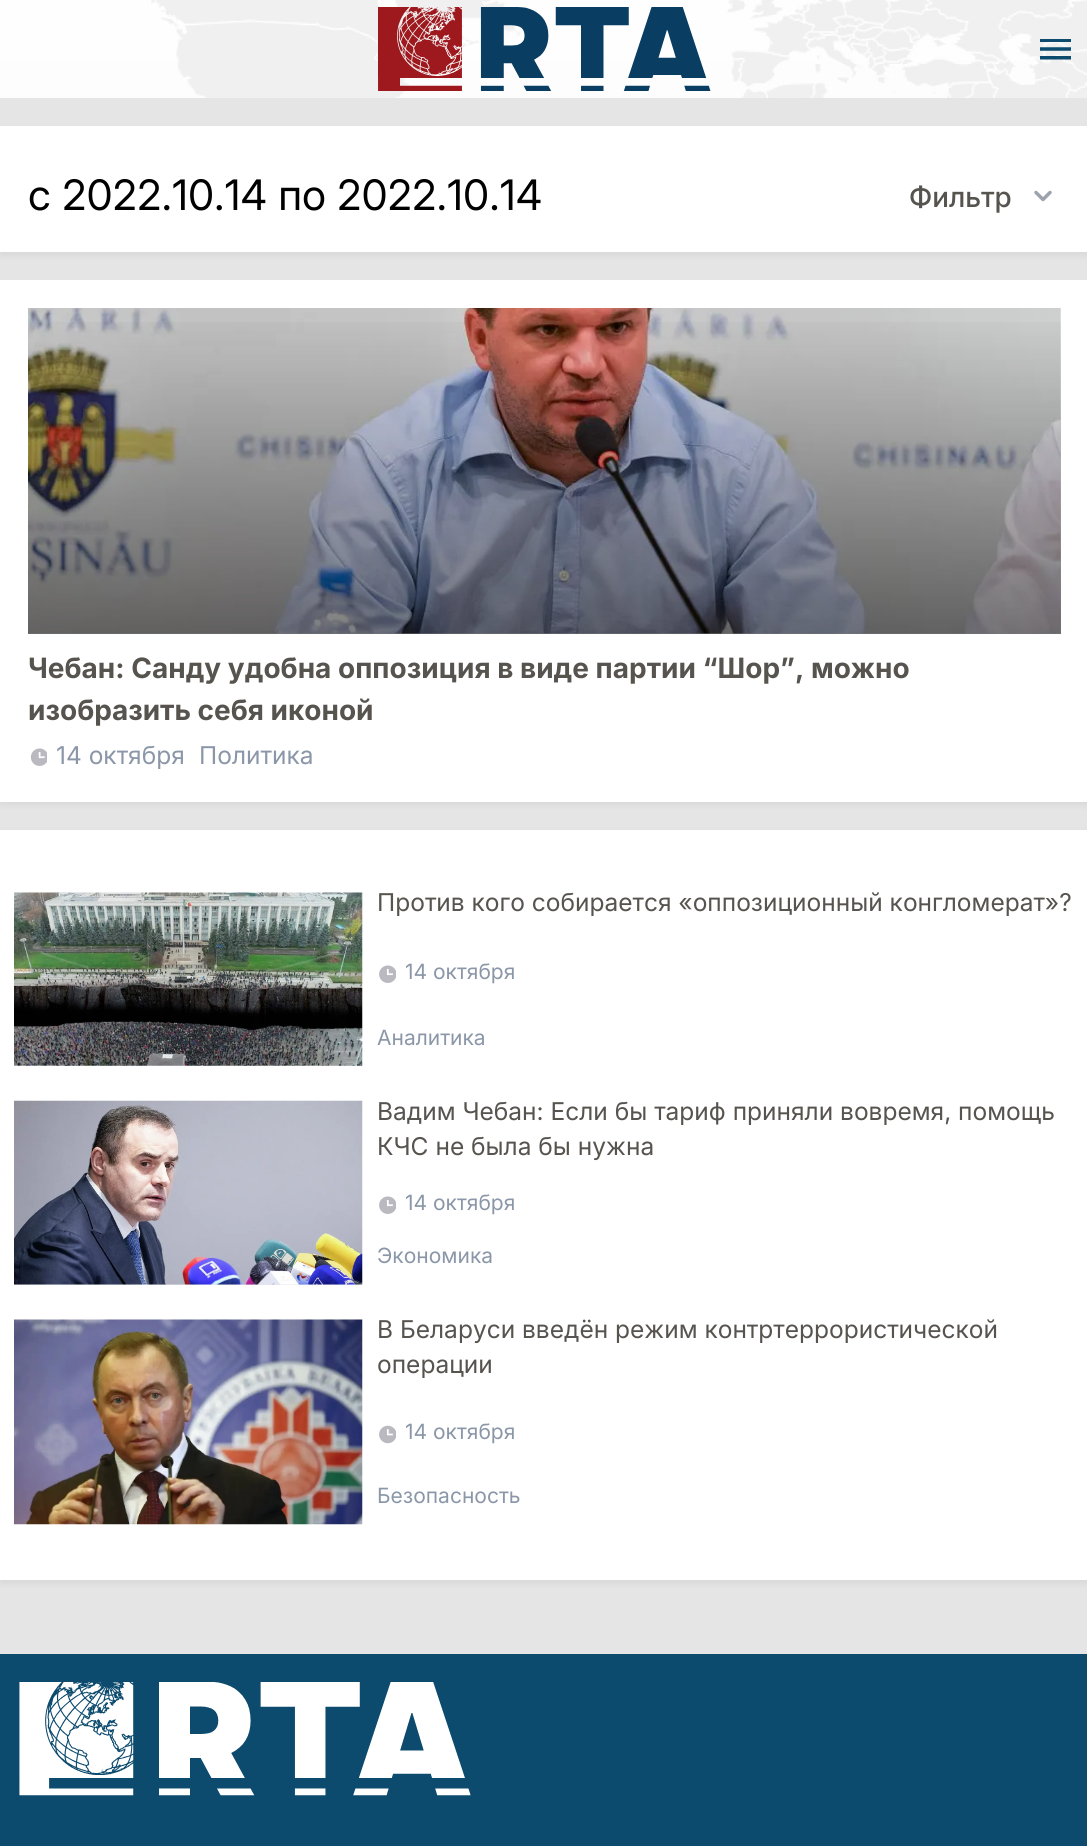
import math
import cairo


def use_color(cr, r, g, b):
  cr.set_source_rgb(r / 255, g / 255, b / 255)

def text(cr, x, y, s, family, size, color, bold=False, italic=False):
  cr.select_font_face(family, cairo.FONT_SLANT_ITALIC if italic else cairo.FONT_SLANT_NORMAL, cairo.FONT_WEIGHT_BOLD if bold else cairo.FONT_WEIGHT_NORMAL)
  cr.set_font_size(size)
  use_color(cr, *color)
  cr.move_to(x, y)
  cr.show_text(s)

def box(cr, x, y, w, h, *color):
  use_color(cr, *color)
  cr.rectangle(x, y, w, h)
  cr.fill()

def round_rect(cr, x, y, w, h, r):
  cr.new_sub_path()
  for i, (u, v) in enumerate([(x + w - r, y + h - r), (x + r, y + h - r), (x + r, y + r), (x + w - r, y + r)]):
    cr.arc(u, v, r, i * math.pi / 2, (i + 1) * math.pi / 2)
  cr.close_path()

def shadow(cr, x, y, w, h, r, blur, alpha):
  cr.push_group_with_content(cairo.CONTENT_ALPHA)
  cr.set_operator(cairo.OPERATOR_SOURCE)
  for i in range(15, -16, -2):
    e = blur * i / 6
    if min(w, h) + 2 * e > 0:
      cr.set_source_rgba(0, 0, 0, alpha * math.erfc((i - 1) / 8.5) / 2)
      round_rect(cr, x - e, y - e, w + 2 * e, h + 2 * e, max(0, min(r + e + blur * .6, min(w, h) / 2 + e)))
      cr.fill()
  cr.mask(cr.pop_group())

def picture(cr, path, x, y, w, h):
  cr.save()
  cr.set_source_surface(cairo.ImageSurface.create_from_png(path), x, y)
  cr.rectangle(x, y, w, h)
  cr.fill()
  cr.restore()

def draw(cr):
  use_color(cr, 229, 229, 229)
  cr.paint()
  picture(cr, "img_01.png", 0, 0, 1087, 98)
  picture(cr, "img_02.png", 378, 7, 333, 84)
  picture(cr, "img_03.png", 1040, 39, 31, 21)
  use_color(cr, 0, 0, 0)
  shadow(cr, 0, 130, 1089, 126, 0, 3.5, 0.06)
  box(cr, 0, 126, 1087, 126, 255, 255, 255)
  picture(cr, "img_04.png", 1034, 190, 18, 12)
  use_color(cr, 0, 0, 0)
  shadow(cr, 0, 284, 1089, 521, 0, 3.5, 0.06)
  box(cr, 0, 280, 1087, 522, 255, 255, 255)
  box(cr, 28, 308, 1033, 326, 229, 231, 235)
  picture(cr, "img_05.png", 28, 308, 1033, 326)
  gradient = cairo.LinearGradient(544, 634, 544, 308)
  gradient.add_color_stop_rgba(0, 0, 0, 0, 1)
  gradient.add_color_stop_rgba(0, 0, 0, 0, 0.5)
  gradient.add_color_stop_rgba(1, 0, 0, 0, 0)
  cr.set_source(gradient)
  cr.rectangle(28, 322, 1033, 312)
  cr.fill()
  picture(cr, "img_06.png", 30, 748, 17, 18)
  use_color(cr, 0, 0, 0)
  shadow(cr, 0, 833, 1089, 751, 0, 3.5, 0.06)
  box(cr, 0, 830, 1087, 750, 255, 255, 255)
  picture(cr, "img_07.png", 14, 892, 349, 174)
  picture(cr, "img_08.png", 379, 965, 17, 18)
  box(cr, 14, 1284, 348, 1, 229, 231, 235)
  picture(cr, "img_09.png", 14, 1100, 349, 185)
  picture(cr, "img_08.png", 379, 1196, 17, 18)
  picture(cr, "img_10.png", 14, 1319, 349, 206)
  picture(cr, "img_11.png", 379, 1425, 17, 19)
  box(cr, 0, 1654, 1087, 192, 12, 74, 110)
  picture(cr, "img_12.png", 19, 1682, 452, 114)
  text(cr, 28, 210, "с 2022.10.14 по 2022.10.14", "Inter", 42, (0, 0, 0))
  text(cr, 909, 207, "Фильтр", "Inter Medium", 28, (87, 83, 78))
  text(cr, 28, 678, "Чебан: Санду удобна оппозиция в виде партии “Шор”, можно", "Inter", 28, (87, 83, 78), bold=True)
  text(cr, 28, 720, "изобразить себя иконой", "Inter", 28, (87, 83, 78), bold=True)
  text(cr, 56, 764, "14 октября", "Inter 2", 24.5, (139, 151, 168))
  text(cr, 199, 764, "Политика", "Inter 2", 24.5, (139, 151, 168))
  text(cr, 377, 911, "Против кого собирается «оппозиционный конгломерат»?", "Inter 2", 24.5, (87, 83, 78))
  text(cr, 405, 979, "14 октября", "Inter 2", 21, (139, 151, 168))
  text(cr, 377, 1045, "Аналитика", "Inter 2", 21, (139, 151, 168))
  text(cr, 377, 1120, "Вадим Чебан: Если бы тариф приняли вовремя, помощь", "Inter 2", 24.5, (87, 83, 78))
  text(cr, 377, 1155, "КЧС не была бы нужна", "Inter 2", 24.5, (87, 83, 78))
  text(cr, 405, 1210, "14 октября", "Inter 2", 21, (139, 151, 168))
  text(cr, 377, 1263, "Экономика", "Inter 2", 21, (139, 151, 168))
  text(cr, 377, 1338, "В Беларуси введён режим контртеррористической", "Inter 2", 24.5, (87, 83, 78))
  text(cr, 377, 1373, "операции", "Inter 2", 24.5, (87, 83, 78))
  text(cr, 405, 1439, "14 октября", "Inter 2", 21, (139, 151, 168))
  text(cr, 377, 1503, "Безопасность", "Inter 2", 21, (139, 151, 168))


surface = cairo.ImageSurface(cairo.FORMAT_RGB24, 1087, 1846)
cr = cairo.Context(surface)
options = cairo.FontOptions()
options.set_hint_metrics(cairo.HINT_METRICS_OFF)
options.set_hint_style(cairo.HINT_STYLE_NONE)
cr.set_font_options(options)
cr.set_miter_limit(4)
draw(cr)
surface.write_to_png("out.png")
